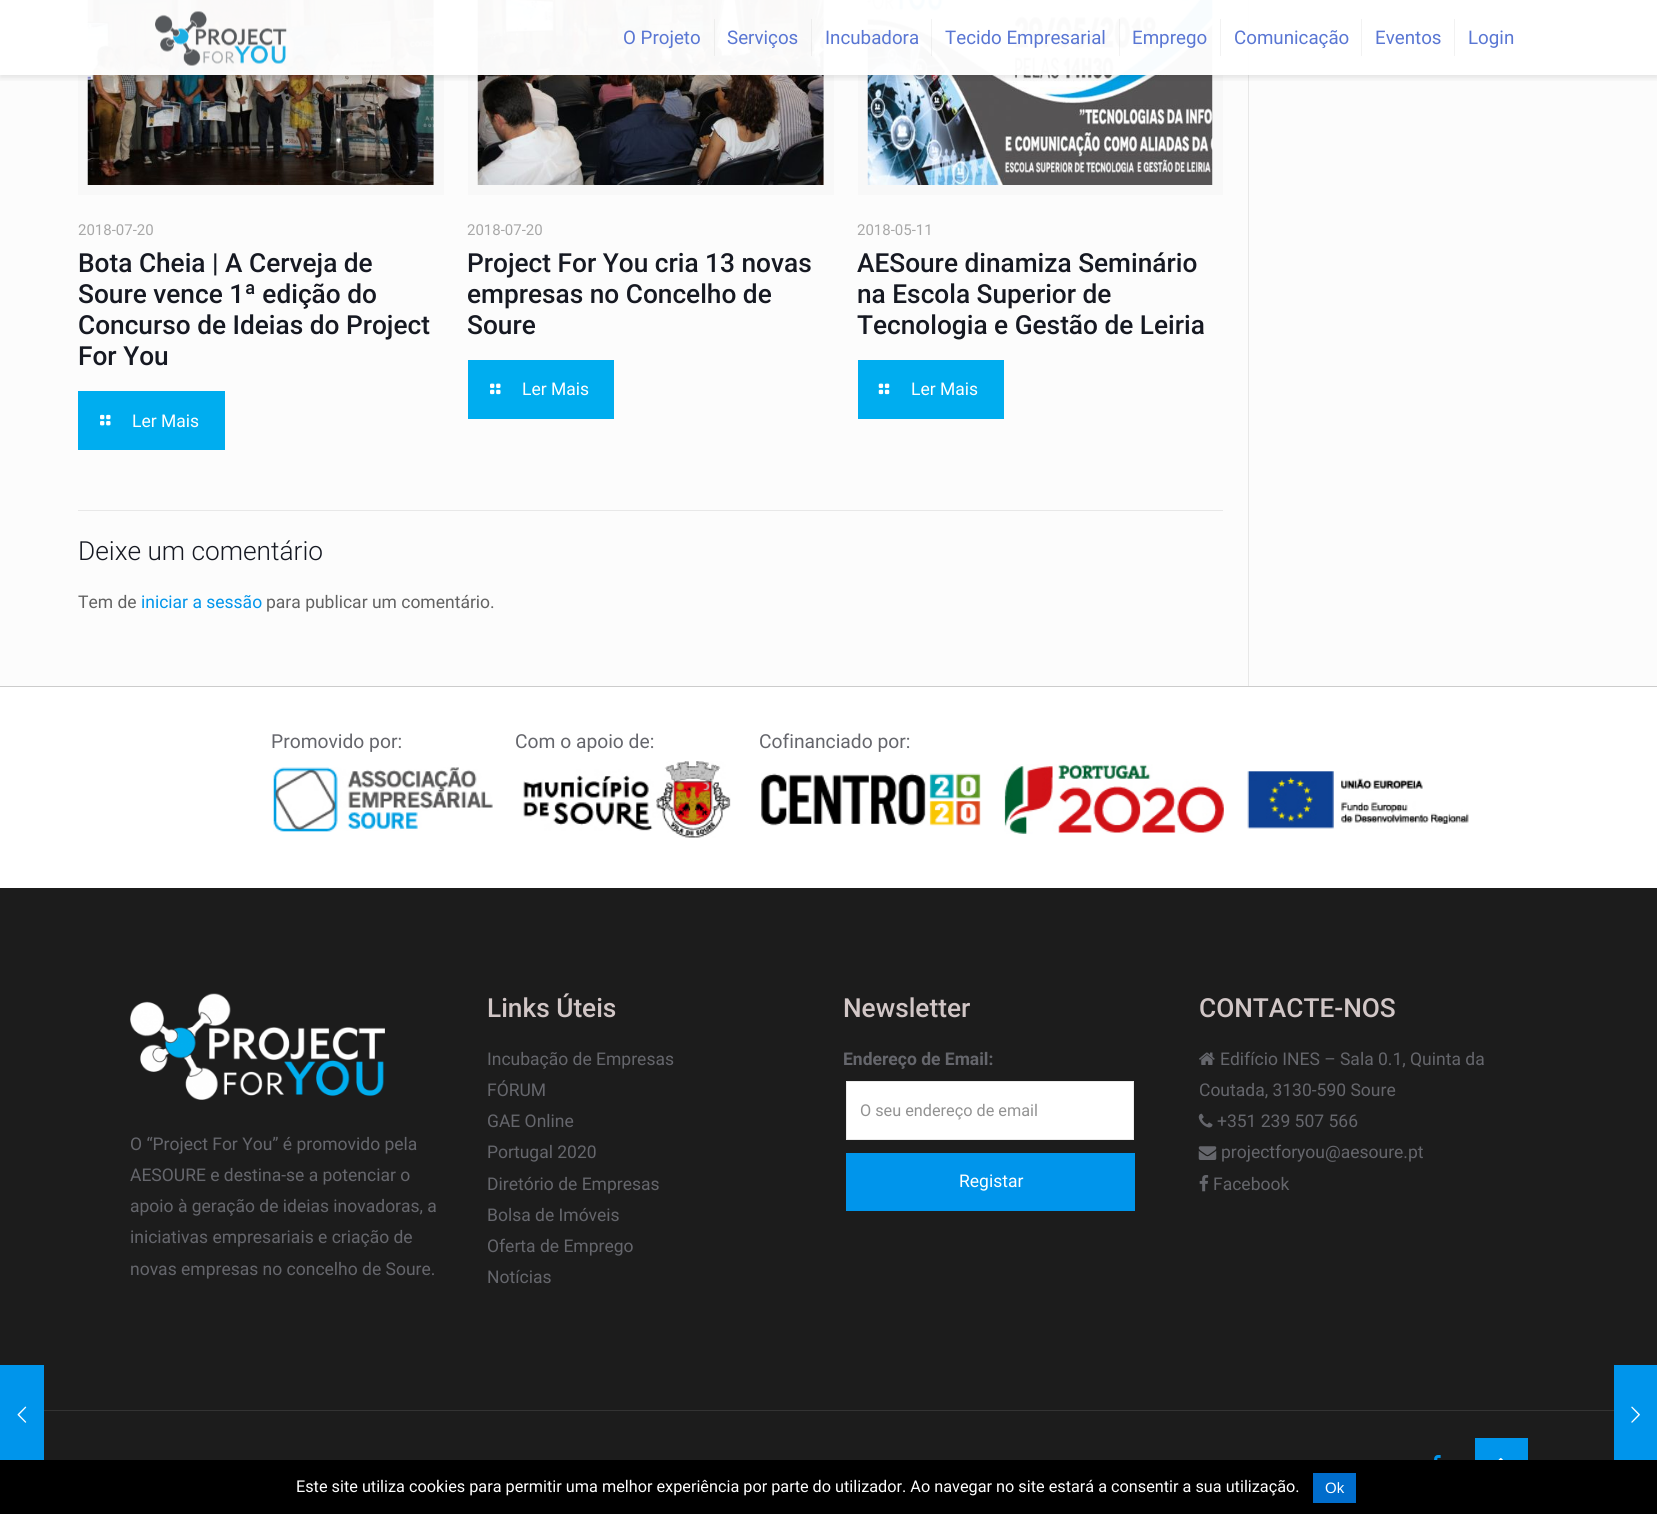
import math
import cairo


def use_color(cr, r, g, b):
  cr.set_source_rgb(r / 255, g / 255, b / 255)

def text(cr, x, y, s, family, size, color, bold=False, italic=False):
  cr.select_font_face(family, cairo.FONT_SLANT_ITALIC if italic else cairo.FONT_SLANT_NORMAL, cairo.FONT_WEIGHT_BOLD if bold else cairo.FONT_WEIGHT_NORMAL)
  cr.set_font_size(size)
  use_color(cr, *color)
  cr.move_to(x, y)
  cr.show_text(s)

def box(cr, x, y, w, h, *color):
  use_color(cr, *color)
  cr.rectangle(x, y, w, h)
  cr.fill()

def round_rect(cr, x, y, w, h, r):
  cr.new_sub_path()
  for i, (u, v) in enumerate([(x + w - r, y + h - r), (x + r, y + h - r), (x + r, y + r), (x + w - r, y + r)]):
    cr.arc(u, v, r, i * math.pi / 2, (i + 1) * math.pi / 2)
  cr.close_path()

def shadow(cr, x, y, w, h, r, blur, alpha):
  cr.push_group_with_content(cairo.CONTENT_ALPHA)
  cr.set_operator(cairo.OPERATOR_SOURCE)
  for i in range(15, -16, -2):
    e = blur * i / 6
    if min(w, h) + 2 * e > 0:
      cr.set_source_rgba(0, 0, 0, alpha * math.erfc((i - 1) / 8.5) / 2)
      round_rect(cr, x - e, y - e, w + 2 * e, h + 2 * e, max(0, min(r + e + blur * .6, min(w, h) / 2 + e)))
      cr.fill()
  cr.mask(cr.pop_group())

def picture(cr, path, x, y, w, h):
  cr.save()
  cr.set_source_surface(cairo.ImageSurface.create_from_png(path), x, y)
  cr.rectangle(x, y, w, h)
  cr.fill()
  cr.restore()

def draw(cr):
  use_color(cr, 252, 252, 252)
  cr.paint()
  cr.rectangle(83, -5, 356, 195)
  use_color(cr, 248, 248, 248)
  cr.set_line_width(10)
  cr.stroke()
  picture(cr, "img_02.png", 87, 0, 347, 185)
  cr.rectangle(473, -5, 356, 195)
  cr.stroke()
  picture(cr, "img_04.png", 477, 0, 347, 185)
  cr.rectangle(863, -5, 355, 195)
  cr.stroke()
  picture(cr, "img_06.png", 867, 0, 346, 185)
  box(cr, 1248, 0, 1, 686, 232, 232, 232)
  cr.save()
  cr.rectangle(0, 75, 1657, 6)
  cr.clip()
  use_color(cr, 0, 0, 0)
  shadow(cr, 0, 3, 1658, 75, 0, 3, 0.1)
  cr.restore()
  cr.set_source_rgba(1, 1, 1, 0.97)
  cr.rectangle(0, 0, 1657, 75)
  cr.fill()
  picture(cr, "img_01.png", 155, 11, 132, 55)
  box(cr, 714, 19, 1, 37, 237, 237, 236)
  cr.set_source_rgba(0, 0, 0, 0.05)
  cr.rectangle(811, 19, 1, 37)
  cr.fill()
  cr.rectangle(931, 19, 1, 37)
  cr.fill()
  cr.rectangle(1119, 19, 1, 37)
  cr.fill()
  box(cr, 1220, 19, 1, 37, 242, 242, 242)
  box(cr, 1361, 19, 1, 37, 242, 242, 242)
  box(cr, 1454, 19, 1, 37, 242, 242, 242)
  box(cr, 78, 391, 147, 59, 0, 173, 239)
  picture(cr, "img_03.png", 100, 414, 11, 12)
  box(cr, 468, 360, 146, 59, 0, 173, 239)
  picture(cr, "img_05.png", 490, 383, 11, 12)
  box(cr, 858, 360, 146, 59, 0, 173, 239)
  picture(cr, "img_07.png", 878, 383, 12, 12)
  box(cr, 78, 510, 1145, 1, 232, 232, 232)
  box(cr, 0, 888, 1657, 572, 28, 28, 28)
  box(cr, 0, 687, 1657, 201, 255, 255, 255)
  box(cr, 0, 686, 1657, 1, 204, 204, 204)
  picture(cr, "img_08.png", 273, 767, 220, 65)
  picture(cr, "img_09.png", 523, 761, 208, 77)
  picture(cr, "img_10.png", 761, 773, 220, 53)
  picture(cr, "img_11.png", 1004, 764, 220, 70)
  picture(cr, "img_12.png", 1247, 771, 222, 58)
  use_color(cr, 255, 255, 255)
  cr.rectangle(846.5, 1081.5, 287, 58)
  cr.fill_preserve()
  use_color(cr, 235, 235, 235)
  cr.set_line_width(1)
  cr.stroke()
  box(cr, 846, 1153, 289, 58, 0, 149, 235)
  picture(cr, "img_13.png", 1199, 1052, 16, 13)
  picture(cr, "img_14.png", 1198, 1113, 15, 15)
  picture(cr, "img_15.png", 1198, 1146, 19, 14)
  picture(cr, "img_16.png", 1199, 1175, 10, 17)
  picture(cr, "img_17.png", 130, 993, 255, 107)
  box(cr, 44, 1410, 1570, 1, 51, 51, 51)
  picture(cr, "img_18.png", 1434, 1455, 7, 5)
  box(cr, 1475, 1438, 53, 22, 0, 149, 235)
  picture(cr, "img_19.png", 1498, 1458, 5, 2)
  box(cr, 0, 1365, 44, 95, 0, 149, 235)
  picture(cr, "img_20.png", 17, 1406, 10, 17)
  box(cr, 1614, 1365, 43, 95, 0, 149, 235)
  picture(cr, "img_21.png", 1631, 1406, 9, 17)
  box(cr, 0, 1460, 1657, 54, 0, 0, 0)
  box(cr, 1313, 1473, 43, 30, 0, 109, 204)
  text(cr, 623, 44, "O Projeto", "Roboto", 18.75, (89, 118, 211))
  text(cr, 727, 44, "Serviços", "Roboto", 18.75, (89, 118, 211))
  text(cr, 825, 44, "Incubadora", "Roboto", 18.75, (89, 118, 211))
  text(cr, 945, 44, "Tecido Empresarial", "Roboto", 18.75, (89, 118, 211))
  text(cr, 1132, 44, "Emprego", "Roboto", 18.75, (89, 118, 211))
  text(cr, 1234, 44, "Comunicação", "Roboto", 18.75, (89, 118, 211))
  text(cr, 1375, 44, "Eventos", "Roboto", 18.75, (89, 118, 211))
  text(cr, 1468, 44, "Login", "Roboto", 18.75, (89, 118, 211))
  text(cr, 78, 235, "2018-07-20", "Roboto", 15, (168, 168, 168))
  text(cr, 78, 272, "Bota Cheia | A Cerveja de", "Roboto Medium", 26.25, (22, 25, 34))
  text(cr, 78, 303, "Soure vence 1ª edição do", "Roboto Medium", 26.25, (22, 25, 34))
  text(cr, 78, 334, "Concurso de Ideias do Project", "Roboto Medium", 26.25, (22, 25, 34))
  text(cr, 78, 365, "For You", "Roboto Medium", 26.25, (22, 25, 34))
  text(cr, 132, 427, "Ler Mais", "Roboto", 17.5, (255, 255, 255))
  text(cr, 467, 235, "2018-07-20", "Roboto", 15, (168, 168, 168))
  text(cr, 467, 272, "Project For You cria 13 novas", "Roboto Medium", 26.25, (22, 25, 34))
  text(cr, 467, 303, "empresas no Concelho de", "Roboto Medium", 26.25, (22, 25, 34))
  text(cr, 467, 334, "Soure", "Roboto Medium", 26.25, (22, 25, 34))
  text(cr, 522, 395, "Ler Mais", "Roboto", 17.5, (255, 255, 255))
  text(cr, 857, 235, "2018-05-11", "Roboto", 15, (168, 168, 168))
  text(cr, 857, 272, "AESoure dinamiza Seminário", "Roboto Medium", 26.25, (22, 25, 34))
  text(cr, 857, 303, "na Escola Superior de", "Roboto Medium", 26.25, (22, 25, 34))
  text(cr, 857, 334, "Tecnologia e Gestão de Leiria", "Roboto Medium", 26.25, (22, 25, 34))
  text(cr, 911, 395, "Ler Mais", "Roboto", 17.5, (255, 255, 255))
  text(cr, 78, 560, "Deixe um comentário", "Roboto Light", 26.25, (22, 25, 34))
  text(cr, 78, 608, "Tem de", "Roboto", 17.5, (98, 98, 98))
  text(cr, 141, 608, "iniciar a sessão", "Roboto", 17.5, (0, 149, 235))
  text(cr, 266, 608, "para publicar um comentário.", "Roboto", 17.5, (98, 98, 98))
  text(cr, 271, 748, "Promovido por:", "Roboto", 19.25, (101, 102, 108))
  text(cr, 515, 748, "Com o apoio de:", "Roboto", 19.25, (101, 102, 108))
  text(cr, 759, 748, "Cofinanciado por:", "Roboto", 19.25, (101, 102, 108))
  text(cr, 487, 1017, "Links Úteis", "Roboto Medium", 26.25, (209, 198, 198))
  text(cr, 487, 1065, "Incubação de Empresas", "Roboto", 17.5, (101, 102, 108))
  text(cr, 487, 1096, "FÓRUM", "Roboto", 17.5, (101, 102, 108))
  text(cr, 487, 1127, "GAE Online", "Roboto", 17.5, (101, 102, 108))
  text(cr, 487, 1158, "Portugal 2020", "Roboto", 17.5, (101, 102, 108))
  text(cr, 487, 1190, "Diretório de Empresas", "Roboto", 17.5, (101, 102, 108))
  text(cr, 487, 1221, "Bolsa de Imóveis", "Roboto", 17.5, (101, 102, 108))
  text(cr, 487, 1252, "Oferta de Emprego", "Roboto", 17.5, (101, 102, 108))
  text(cr, 487, 1283, "Notícias", "Roboto", 17.5, (101, 102, 108))
  text(cr, 843, 1017, "Newsletter", "Roboto Medium", 26.25, (209, 198, 198))
  text(cr, 843, 1065, "Endereço de Email:", "Roboto", 17.5, (101, 102, 108), bold=True)
  text(cr, 860, 1116, "O seu endereço de email", "Roboto", 16.25, (146, 146, 146))
  text(cr, 959, 1187, "Registar", "Roboto", 17.5, (255, 255, 255))
  text(cr, 1199, 1017, "CONTACTE-NOS", "Roboto Medium", 26.25, (209, 198, 198))
  text(cr, 1220, 1065, "Edifício INES – Sala 0.1, Quinta da", "Roboto", 17.5, (101, 102, 108))
  text(cr, 1199, 1096, "Coutada, 3130-590 Soure", "Roboto", 17.5, (101, 102, 108))
  text(cr, 1217, 1127, "+351 239 507 566", "Roboto", 17.5, (101, 102, 108))
  text(cr, 1221, 1158, "projectforyou@aesoure.pt", "Roboto", 17.5, (101, 102, 108))
  text(cr, 1213, 1190, "Facebook", "Roboto", 17.5, (101, 102, 108))
  text(cr, 130, 1150, "O “Project For You” é promovido pela", "Roboto", 17.5, (101, 102, 108))
  text(cr, 130, 1181, "AESOURE e destina-se a potenciar o", "Roboto", 17.5, (101, 102, 108))
  text(cr, 130, 1212, "apoio à geração de ideias inovadoras, a", "Roboto", 17.5, (101, 102, 108))
  text(cr, 130, 1243, "iniciativas empresariais e criação de", "Roboto", 17.5, (101, 102, 108))
  text(cr, 130, 1275, "novas empresas no concelho de Soure.", "Roboto", 17.5, (101, 102, 108))
  text(cr, 296, 1492, "Este site utiliza cookies para permitir uma melhor experiência por parte do utilizador. Ao navegar no site estará a consentir a sua utilização.", "Roboto", 16.25, (255, 255, 255))
  text(cr, 1325, 1493, "Ok", "Liberation Sans", 15, (255, 255, 255))


surface = cairo.ImageSurface(cairo.FORMAT_RGB24, 1657, 1514)
cr = cairo.Context(surface)
options = cairo.FontOptions()
options.set_hint_metrics(cairo.HINT_METRICS_OFF)
options.set_hint_style(cairo.HINT_STYLE_NONE)
cr.set_font_options(options)
cr.set_miter_limit(4)
draw(cr)
surface.write_to_png("out.png")
